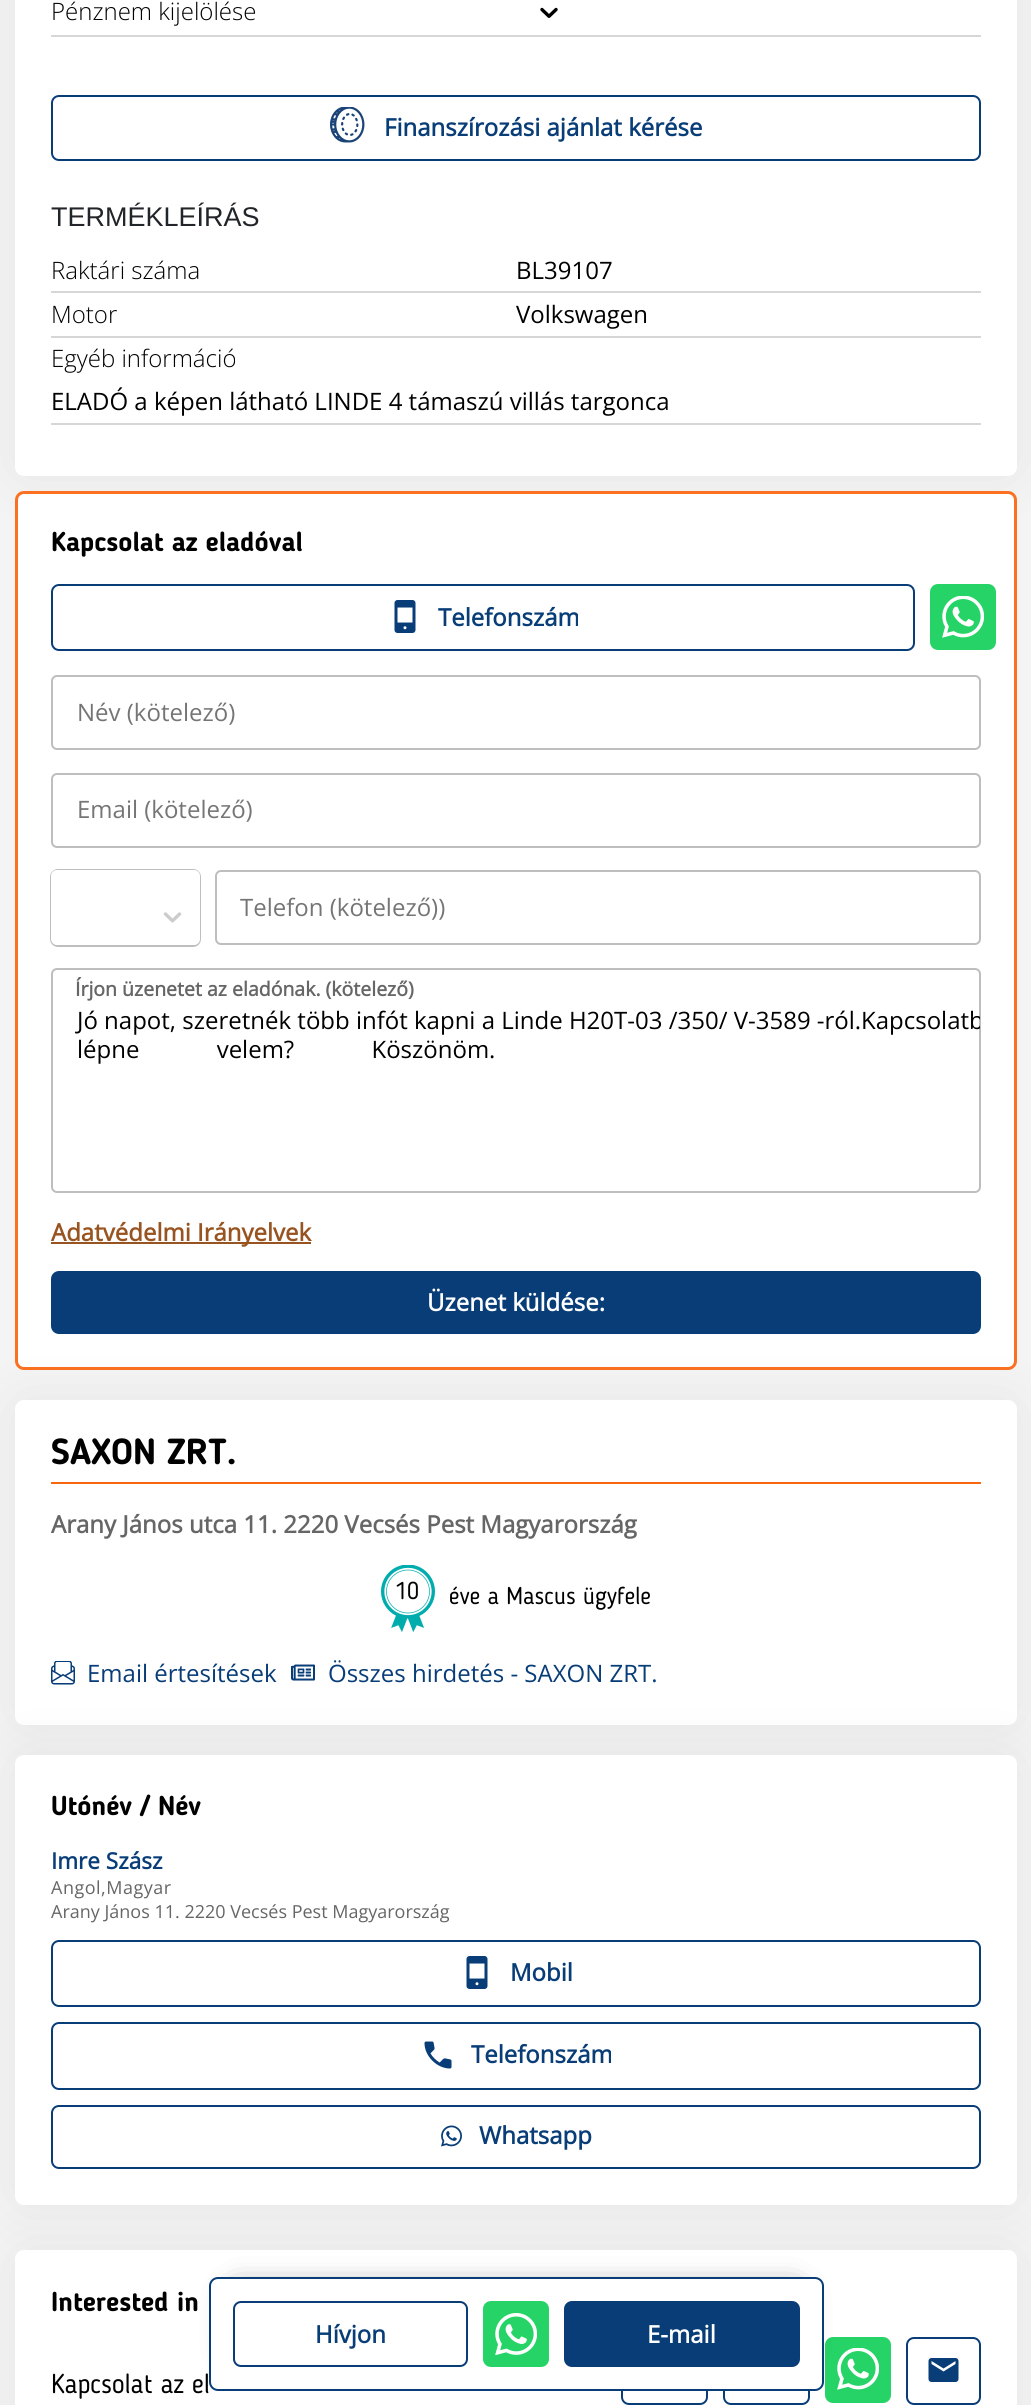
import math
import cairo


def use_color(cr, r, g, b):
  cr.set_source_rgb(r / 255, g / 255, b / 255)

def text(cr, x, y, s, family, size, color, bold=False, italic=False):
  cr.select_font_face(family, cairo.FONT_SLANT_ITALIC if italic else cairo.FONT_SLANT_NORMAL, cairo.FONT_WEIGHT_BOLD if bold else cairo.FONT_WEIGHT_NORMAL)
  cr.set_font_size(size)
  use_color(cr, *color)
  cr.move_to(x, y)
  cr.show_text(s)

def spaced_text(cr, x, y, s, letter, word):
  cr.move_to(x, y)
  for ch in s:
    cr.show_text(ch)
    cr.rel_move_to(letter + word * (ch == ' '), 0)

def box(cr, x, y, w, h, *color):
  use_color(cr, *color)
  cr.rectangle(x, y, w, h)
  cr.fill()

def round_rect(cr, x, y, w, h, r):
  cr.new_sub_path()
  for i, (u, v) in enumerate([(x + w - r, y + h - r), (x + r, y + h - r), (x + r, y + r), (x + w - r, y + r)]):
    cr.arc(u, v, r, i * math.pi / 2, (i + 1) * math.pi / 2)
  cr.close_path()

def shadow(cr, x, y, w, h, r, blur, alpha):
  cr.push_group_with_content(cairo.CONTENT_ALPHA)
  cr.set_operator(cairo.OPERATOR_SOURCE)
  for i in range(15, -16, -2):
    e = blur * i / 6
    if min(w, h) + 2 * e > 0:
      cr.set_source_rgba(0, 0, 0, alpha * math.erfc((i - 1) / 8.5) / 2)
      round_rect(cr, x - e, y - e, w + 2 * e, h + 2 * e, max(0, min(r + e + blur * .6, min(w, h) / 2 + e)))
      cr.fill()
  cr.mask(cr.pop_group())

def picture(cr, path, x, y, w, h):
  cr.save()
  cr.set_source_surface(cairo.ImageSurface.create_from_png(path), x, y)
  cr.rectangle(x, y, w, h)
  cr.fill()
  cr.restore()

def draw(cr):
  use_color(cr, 244, 244, 244)
  cr.paint()
  use_color(cr, 0, 0, 0)
  shadow(cr, 15, -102, 1002, 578, 9, 31, 0.06)
  use_color(cr, 255, 255, 255)
  round_rect(cr, 15, -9, 1002, 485, 9)
  cr.fill()
  box(cr, 51, 35, 930, 2, 214, 214, 214)
  picture(cr, "img_01.png", 540, 7, 18, 11)
  round_rect(cr, 52, 96, 928, 64, 7)
  use_color(cr, 8, 61, 119)
  cr.stroke()
  picture(cr, "img_02.png", 330, 107, 35, 36)
  box(cr, 51, 291, 930, 2, 214, 214, 214)
  box(cr, 51, 336, 930, 2, 214, 214, 214)
  box(cr, 51, 423, 930, 2, 214, 214, 214)
  use_color(cr, 255, 255, 255)
  round_rect(cr, 16.5, 492.5, 999, 876, 7.5)
  cr.fill_preserve()
  use_color(cr, 251, 113, 33)
  cr.set_line_width(3)
  cr.stroke()
  round_rect(cr, 52, 585, 862, 65, 7)
  use_color(cr, 8, 61, 119)
  cr.set_line_width(2)
  cr.stroke()
  picture(cr, "img_03.png", 394, 600, 22, 33)
  use_color(cr, 37, 211, 102)
  round_rect(cr, 930, 584, 66, 66, 8)
  cr.fill()
  picture(cr, "img_04.png", 942, 596, 42, 42)
  round_rect(cr, 52, 676, 928, 73, 5)
  use_color(cr, 190, 190, 190)
  cr.stroke()
  round_rect(cr, 52, 774, 928, 73, 5)
  cr.stroke()
  round_rect(cr, 51, 870, 149, 76, 7)
  cr.stroke()
  use_color(cr, 255, 255, 255)
  round_rect(cr, 51, 870, 149, 75, 6)
  cr.fill()
  picture(cr, "img_05.png", 163, 912, 19, 11)
  round_rect(cr, 216, 871, 764, 73, 5)
  use_color(cr, 190, 190, 190)
  cr.stroke()
  round_rect(cr, 52, 969, 928, 223, 5)
  cr.stroke()
  box(cr, 51, 1242, 260, 2, 152, 84, 32)
  use_color(cr, 0, 0, 0)
  shadow(cr, 15, 1400, 1002, 325, 9, 31, 0.06)
  use_color(cr, 8, 61, 119)
  round_rect(cr, 51, 1271, 930, 63, 8)
  cr.fill()
  use_color(cr, 255, 255, 255)
  round_rect(cr, 15, 1400, 1002, 325, 9)
  cr.fill()
  box(cr, 51, 1482, 930, 2, 250, 101, 15)
  picture(cr, "img_06.png", 381, 1565, 54, 67)
  use_color(cr, 0, 0, 0)
  shadow(cr, 15, 1755, 1002, 450, 9, 31, 0.06)
  picture(cr, "img_07.png", 51, 1661, 24, 24)
  picture(cr, "img_08.png", 291, 1664, 24, 17)
  use_color(cr, 255, 255, 255)
  round_rect(cr, 15, 1755, 1002, 450, 9)
  cr.fill()
  round_rect(cr, 52, 1941, 928, 65, 7)
  use_color(cr, 8, 61, 119)
  cr.stroke()
  picture(cr, "img_03.png", 466, 1956, 22, 33)
  round_rect(cr, 52, 2023, 928, 66, 7)
  cr.stroke()
  picture(cr, "img_09.png", 424, 2041, 28, 28)
  use_color(cr, 0, 0, 0)
  shadow(cr, 15, 2250, 1002, 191, 9, 31, 0.06)
  round_rect(cr, 52, 2106, 928, 62, 7)
  use_color(cr, 8, 61, 119)
  cr.stroke()
  picture(cr, "img_10.png", 441, 2125, 21, 22)
  use_color(cr, 255, 255, 255)
  round_rect(cr, 15, 2250, 1002, 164, 9)
  cr.fill()
  round_rect(cr, 622, 2338, 85, 66, 7)
  use_color(cr, 8, 61, 119)
  cr.stroke()
  round_rect(cr, 724, 2338, 85, 66, 7)
  cr.stroke()
  use_color(cr, 37, 211, 102)
  round_rect(cr, 825, 2337, 66, 66, 8)
  cr.fill()
  picture(cr, "img_04.png", 837, 2348, 42, 42)
  round_rect(cr, 907, 2338, 73, 66, 7)
  use_color(cr, 8, 61, 119)
  cr.stroke()
  picture(cr, "img_11.png", 928, 2358, 31, 24)
  use_color(cr, 51, 51, 51)
  shadow(cr, 237, 2294, 558, 57, 0, 15, 1)
  use_color(cr, 255, 255, 255)
  round_rect(cr, 210, 2278, 613, 112, 8)
  cr.fill_preserve()
  use_color(cr, 8, 61, 119)
  cr.stroke()
  round_rect(cr, 234, 2302, 233, 64, 7)
  cr.stroke()
  use_color(cr, 37, 211, 102)
  round_rect(cr, 483, 2301, 66, 66, 8)
  cr.fill()
  picture(cr, "img_12.png", 495, 2313, 42, 42)
  use_color(cr, 8, 61, 119)
  round_rect(cr, 564, 2301, 236, 66, 8)
  cr.fill()
  text(cr, 51, 20, "Pénznem kijelölése", "Open Sans Light", 24, (0, 0, 0))
  text(cr, 384, 136, "Finanszírozási ajánlat kérése", "Open Sans", 24, (8, 61, 119), bold=True)
  text(cr, 51, 226, "TERMÉKLEÍRÁS", "Liberation Sans", 27, (33, 37, 41))
  text(cr, 51, 279, "Raktári száma", "Open Sans Light", 24, (0, 0, 0))
  text(cr, 516, 279, "BL39107", "Open Sans", 24, (0, 0, 0))
  text(cr, 51, 323, "Motor", "Open Sans Light", 24, (0, 0, 0))
  text(cr, 516, 323, "Volkswagen", "Open Sans", 24, (0, 0, 0))
  text(cr, 51, 367, "Egyéb információ", "Open Sans Light", 24, (0, 0, 0))
  text(cr, 51, 410, "ELADÓ a képen látható LINDE 4 támaszú villás targonca", "Open Sans", 24, (0, 0, 0))
  text(cr, 51, 551, "Kapcsolat az eladóval", "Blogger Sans", 27, (0, 0, 0), bold=True)
  text(cr, 438, 626, "Telefonszám", "Open Sans", 24, (8, 61, 119), bold=True)
  text(cr, 77, 721, "Név (kötelező)", "Open Sans", 24, (117, 117, 117))
  text(cr, 77, 818, "Email (kötelező)", "Open Sans", 24, (117, 117, 117))
  text(cr, 240, 916, "Telefon (kötelező))", "Open Sans", 24, (117, 117, 117))
  text(cr, 75, 996, "Írjon üzenetet az eladónak. (kötelező)", "Open Sans", 19.5, (102, 102, 102), bold=True)
  text(cr, 77, 1029, "Jó napot, szeretnék több infót kapni a Linde H20T-03 /350/ V-3589 -ról.", "Open Sans", 24, (0, 0, 0))
  cr.save()
  round_rect(cr, 53, 969, 927, 222, 5)
  cr.clip()
  text(cr, 861, 1029, "Kapcsolatb", "Open Sans", 24, (0, 0, 0))
  cr.restore()
  spaced_text(cr, 77, 1058, "lépne velem? Köszönöm.", 0, 71)
  text(cr, 51, 1241, "Adatvédelmi Irányelvek", "Open Sans", 24, (152, 84, 32), bold=True)
  text(cr, 427, 1311, "Üzenet küldése:", "Open Sans", 24, (255, 255, 255), bold=True)
  text(cr, 51, 1464, "SAXON ZRT.", "Blogger Sans", 36, (0, 0, 0), bold=True)
  text(cr, 51, 1533, "Arany János utca 11. 2220 Vecsés Pest Magyarország", "Open Sans", 24, (102, 102, 102), bold=True)
  text(cr, 395, 1599, "10", "Blogger Sans", 24, (0, 0, 0))
  text(cr, 449, 1604, "éve a Mascus ügyfele", "Blogger Sans", 24, (0, 0, 0))
  text(cr, 87, 1682, "Email értesítések", "Open Sans", 24, (8, 61, 119))
  text(cr, 328, 1682, "Összes hirdetés - SAXON ZRT.", "Open Sans", 24, (8, 61, 119))
  text(cr, 51, 1815, "Utónév / Név", "Blogger Sans", 27, (0, 0, 0), bold=True)
  text(cr, 51, 1869, "Imre Szász", "Open Sans", 22.5, (8, 61, 119), bold=True)
  cr.select_font_face("Open Sans")
  cr.set_font_size(18)
  use_color(cr, 102, 102, 102)
  spaced_text(cr, 51, 1894, "Angol,Magyar", 0.5, 0)
  text(cr, 51, 1918, "Arany János 11. 2220 Vecsés Pest Magyarország", "Open Sans", 18, (102, 102, 102))
  text(cr, 510, 1981, "Mobil", "Open Sans", 24, (8, 61, 119), bold=True)
  text(cr, 471, 2063, "Telefonszám", "Open Sans", 24, (8, 61, 119), bold=True)
  text(cr, 479, 2144, "Whatsapp", "Open Sans", 24, (8, 61, 119), bold=True)
  text(cr, 51, 2311, "Interested in", "Blogger Sans", 27, (0, 0, 0), bold=True)
  text(cr, 51, 2393, "Kapcsolat az el", "Blogger Sans", 27, (0, 0, 0))
  text(cr, 315, 2343, "Hívjon", "Open Sans", 24, (8, 61, 119), bold=True)
  text(cr, 647, 2343, "E-mail", "Open Sans", 24, (255, 255, 255), bold=True)


surface = cairo.ImageSurface(cairo.FORMAT_RGB24, 1031, 2405)
cr = cairo.Context(surface)
options = cairo.FontOptions()
options.set_hint_metrics(cairo.HINT_METRICS_OFF)
options.set_hint_style(cairo.HINT_STYLE_NONE)
cr.set_font_options(options)
cr.set_miter_limit(4)
draw(cr)
surface.write_to_png("out.png")
